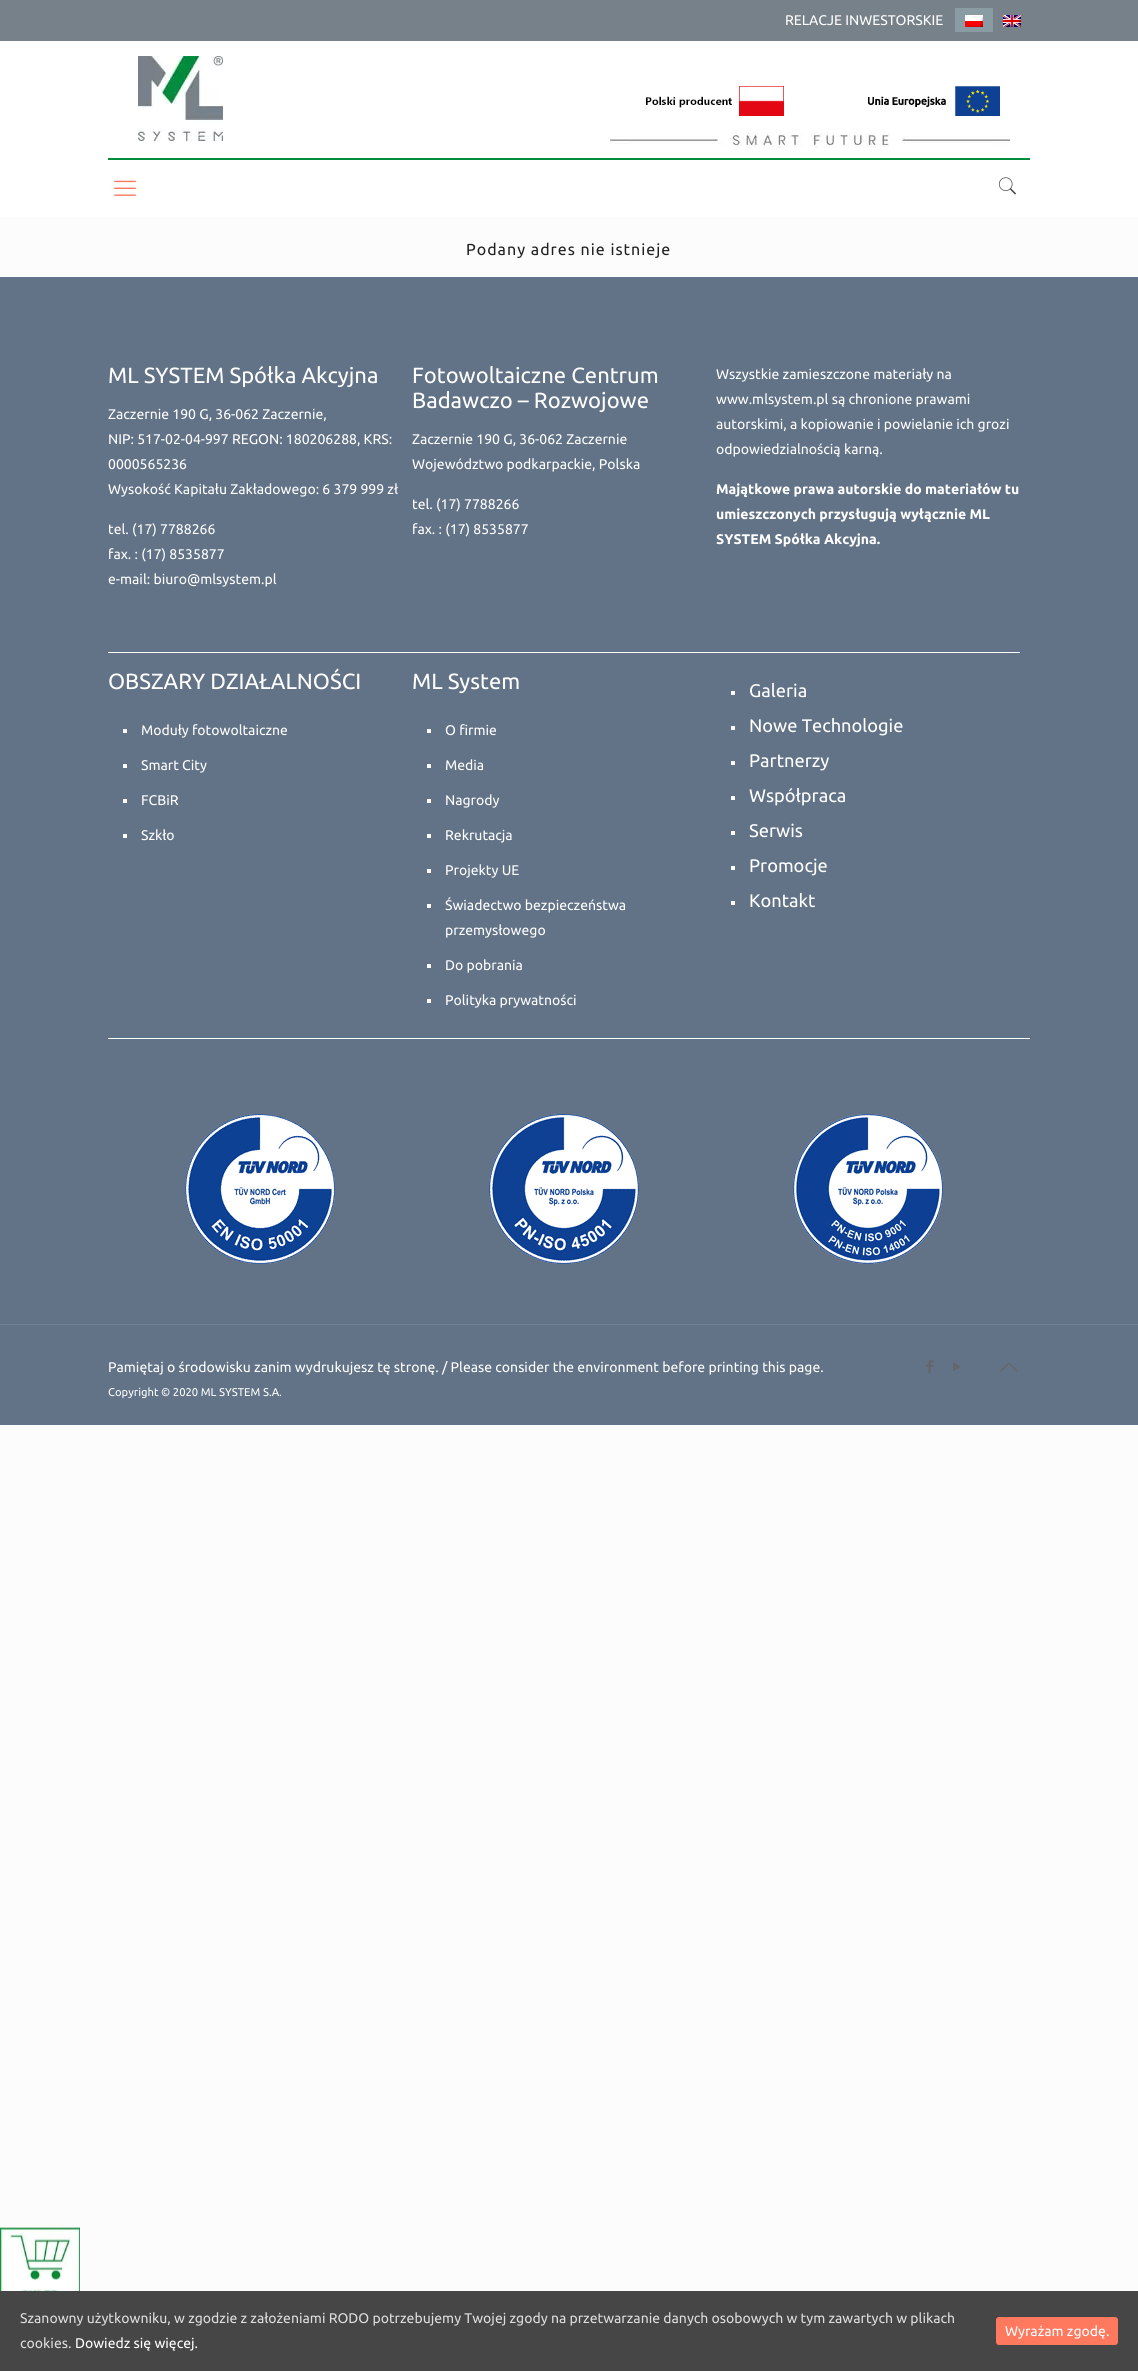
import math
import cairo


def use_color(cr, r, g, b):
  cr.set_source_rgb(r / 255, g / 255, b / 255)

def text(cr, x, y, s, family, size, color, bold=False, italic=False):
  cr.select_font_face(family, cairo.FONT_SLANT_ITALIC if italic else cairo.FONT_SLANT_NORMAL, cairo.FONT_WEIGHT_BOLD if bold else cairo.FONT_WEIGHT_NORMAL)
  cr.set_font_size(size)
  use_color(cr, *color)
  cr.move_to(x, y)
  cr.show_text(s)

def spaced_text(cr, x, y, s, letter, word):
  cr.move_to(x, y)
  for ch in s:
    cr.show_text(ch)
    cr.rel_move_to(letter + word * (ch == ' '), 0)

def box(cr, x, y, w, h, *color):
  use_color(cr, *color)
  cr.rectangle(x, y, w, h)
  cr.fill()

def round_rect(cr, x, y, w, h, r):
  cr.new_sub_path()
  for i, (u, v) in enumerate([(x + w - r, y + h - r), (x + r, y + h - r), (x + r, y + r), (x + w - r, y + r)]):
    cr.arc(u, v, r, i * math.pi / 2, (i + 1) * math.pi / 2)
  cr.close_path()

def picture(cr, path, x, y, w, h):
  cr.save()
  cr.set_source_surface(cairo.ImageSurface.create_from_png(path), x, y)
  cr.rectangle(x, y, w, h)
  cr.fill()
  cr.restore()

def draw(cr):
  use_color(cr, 252, 252, 252)
  cr.paint()
  box(cr, 0, 0, 1138, 41, 119, 129, 138)
  box(cr, 955, 8, 38, 24, 138, 156, 163)
  picture(cr, "img_01.png", 965, 15, 18, 12)
  picture(cr, "img_02.png", 1003, 15, 18, 12)
  box(cr, 0, 41, 1138, 176, 255, 255, 255)
  picture(cr, "img_03.png", 138, 56, 85, 85)
  picture(cr, "img_04.png", 646, 86, 138, 30)
  picture(cr, "img_05.png", 868, 86, 132, 30)
  picture(cr, "img_06.png", 610, 132, 400, 16)
  box(cr, 108, 158, 922, 2, 0, 140, 57)
  picture(cr, "img_07.png", 114, 180, 22, 16)
  picture(cr, "img_08.png", 998, 177, 19, 18)
  box(cr, 0, 277, 1138, 1148, 98, 115, 135)
  box(cr, 108, 652, 912, 1, 255, 255, 255)
  box(cr, 123, 729, 4, 4, 255, 255, 255)
  box(cr, 123, 764, 4, 4, 255, 255, 255)
  box(cr, 123, 799, 4, 4, 255, 255, 255)
  box(cr, 123, 834, 4, 4, 255, 255, 255)
  box(cr, 427, 729, 4, 4, 255, 255, 255)
  box(cr, 427, 764, 4, 4, 255, 255, 255)
  box(cr, 427, 799, 4, 4, 255, 255, 255)
  box(cr, 427, 834, 4, 4, 255, 255, 255)
  box(cr, 427, 869, 4, 4, 255, 255, 255)
  box(cr, 427, 904, 4, 4, 255, 255, 255)
  box(cr, 427, 964, 4, 4, 255, 255, 255)
  box(cr, 427, 999, 4, 4, 255, 255, 255)
  box(cr, 731, 691, 4, 4, 255, 255, 255)
  box(cr, 731, 726, 4, 4, 255, 255, 255)
  box(cr, 731, 761, 4, 4, 255, 255, 255)
  box(cr, 731, 796, 4, 4, 255, 255, 255)
  box(cr, 731, 831, 4, 4, 255, 255, 255)
  box(cr, 731, 866, 4, 4, 255, 255, 255)
  box(cr, 731, 901, 4, 4, 255, 255, 255)
  box(cr, 108, 1038, 922, 1, 255, 255, 255)
  picture(cr, "img_09.png", 185, 1114, 150, 150)
  picture(cr, "img_10.png", 489, 1114, 150, 150)
  picture(cr, "img_11.png", 793, 1114, 150, 150)
  box(cr, 0, 1324, 1138, 1, 114, 129, 147)
  picture(cr, "img_12.png", 926, 1360, 8, 14)
  picture(cr, "img_13.png", 953, 1362, 8, 9)
  picture(cr, "img_14.png", 1000, 1362, 17, 10)
  picture(cr, "img_15.png", 0, 2227, 80, 64)
  box(cr, 0, 2291, 1138, 80, 70, 70, 70)
  use_color(cr, 255, 121, 95)
  round_rect(cr, 996, 2317, 122, 28, 3)
  cr.fill()
  text(cr, 785, 25, "RELACJE INWESTORSKIE", "Ubuntu", 14, (255, 255, 255))
  cr.set_font_size(16)
  use_color(cr, 34, 34, 34)
  spaced_text(cr, 466, 255, "Podany adres nie istnieje", 1, 0)
  text(cr, 108, 383, "ML SYSTEM Spółka Akcyjna", "Ubuntu", 22, (255, 255, 255))
  text(cr, 108, 419, "Zaczernie 190 G, 36-062 Zaczernie,", "Ubuntu", 14, (255, 255, 255))
  text(cr, 108, 444, "NIP: 517-02-04-997 REGON: 180206288, KRS:", "Ubuntu", 14, (255, 255, 255))
  text(cr, 108, 469, "0000565236", "Ubuntu", 14, (255, 255, 255))
  text(cr, 108, 494, "Wysokość Kapitału Zakładowego: 6 379 999 zł", "Ubuntu", 14, (255, 255, 255))
  text(cr, 108, 534, "tel. (17) 7788266", "Ubuntu", 14, (255, 255, 255))
  text(cr, 108, 559, "fax. : (17) 8535877", "Ubuntu", 14, (255, 255, 255))
  text(cr, 108, 584, "e-mail: biuro@mlsystem.pl", "Ubuntu", 14, (255, 255, 255))
  text(cr, 412, 383, "Fotowoltaiczne Centrum", "Ubuntu", 22, (255, 255, 255))
  text(cr, 412, 408, "Badawczo – Rozwojowe", "Ubuntu", 22, (255, 255, 255))
  text(cr, 412, 444, "Zaczernie 190 G, 36-062 Zaczernie", "Ubuntu", 14, (255, 255, 255))
  text(cr, 412, 469, "Województwo podkarpackie, Polska", "Ubuntu", 14, (255, 255, 255))
  text(cr, 412, 509, "tel. (17) 7788266", "Ubuntu", 14, (255, 255, 255))
  text(cr, 412, 534, "fax. : (17) 8535877", "Ubuntu", 14, (255, 255, 255))
  text(cr, 716, 379, "Wszystkie zamieszczone materiały na", "Ubuntu", 14, (255, 255, 255))
  text(cr, 716, 404, "www.mlsystem.pl są chronione prawami", "Ubuntu", 14, (255, 255, 255))
  text(cr, 716, 429, "autorskimi, a kopiowanie i powielanie ich grozi", "Ubuntu", 14, (255, 255, 255))
  text(cr, 716, 454, "odpowiedzialnością karną.", "Ubuntu", 14, (255, 255, 255))
  text(cr, 716, 494, "Majątkowe prawa autorskie do materiałów tu", "Ubuntu", 14, (255, 255, 255), bold=True)
  text(cr, 716, 519, "umieszczonych przysługują wyłącznie ML", "Ubuntu", 14, (255, 255, 255), bold=True)
  text(cr, 716, 544, "SYSTEM Spółka Akcyjna.", "Ubuntu", 14, (255, 255, 255), bold=True)
  text(cr, 108, 689, "OBSZARY DZIAŁALNOŚCI", "Ubuntu", 22, (255, 255, 255))
  text(cr, 141, 735, "Moduły fotowoltaiczne", "Ubuntu", 14, (255, 255, 255))
  text(cr, 141, 770, "Smart City", "Ubuntu", 14, (255, 255, 255))
  text(cr, 141, 805, "FCBiR", "Ubuntu", 14, (255, 255, 255))
  text(cr, 141, 840, "Szkło", "Ubuntu", 14, (255, 255, 255))
  text(cr, 412, 689, "ML System", "Ubuntu", 22, (255, 255, 255))
  text(cr, 445, 735, "O firmie", "Ubuntu", 14, (255, 255, 255))
  text(cr, 445, 770, "Media", "Ubuntu", 14, (255, 255, 255))
  text(cr, 445, 805, "Nagrody", "Ubuntu", 14, (255, 255, 255))
  text(cr, 445, 840, "Rekrutacja", "Ubuntu", 14, (255, 255, 255))
  text(cr, 445, 875, "Projekty UE", "Ubuntu", 14, (255, 255, 255))
  text(cr, 445, 910, "Świadectwo bezpieczeństwa", "Ubuntu", 14, (255, 255, 255))
  text(cr, 445, 935, "przemysłowego", "Ubuntu", 14, (255, 255, 255))
  text(cr, 445, 970, "Do pobrania", "Ubuntu", 14, (255, 255, 255))
  text(cr, 445, 1005, "Polityka prywatności", "Ubuntu", 14, (255, 255, 255))
  text(cr, 749, 697, "Galeria", "Ubuntu", 18.25, (255, 255, 255))
  text(cr, 749, 732, "Nowe Technologie", "Ubuntu", 18.25, (255, 255, 255))
  text(cr, 749, 767, "Partnerzy", "Ubuntu", 18.25, (255, 255, 255))
  text(cr, 749, 802, "Współpraca", "Ubuntu", 18.25, (255, 255, 255))
  text(cr, 749, 837, "Serwis", "Ubuntu", 18.25, (255, 255, 255))
  text(cr, 749, 872, "Promocje", "Ubuntu", 18.25, (255, 255, 255))
  text(cr, 749, 907, "Kontakt", "Ubuntu", 18.25, (255, 255, 255))
  text(cr, 108, 1372, "Pamiętaj o środowisku zanim wydrukujesz tę stronę. / Please consider the environment before printing this page.", "Ubuntu", 14, (255, 255, 255))
  text(cr, 108, 1396, "Copyright © 2020 ML SYSTEM S.A.", "Ubuntu", 11.25, (255, 255, 255))
  text(cr, 20, 2323, "Szanowny użytkowniku, w zgodzie z założeniami RODO potrzebujemy Twojej zgody na przetwarzanie danych osobowych w tym zawartych w plikach", "Ubuntu", 14, (221, 221, 221))
  text(cr, 20, 2348, "cookies.", "Ubuntu", 14, (221, 221, 221))
  text(cr, 75, 2348, "Dowiedz się więcej.", "Ubuntu", 14, (255, 255, 255))
  text(cr, 1005, 2336, "Wyrażam zgodę.", "Ubuntu", 14, (255, 255, 255))


surface = cairo.ImageSurface(cairo.FORMAT_RGB24, 1138, 2371)
cr = cairo.Context(surface)
options = cairo.FontOptions()
options.set_hint_metrics(cairo.HINT_METRICS_OFF)
options.set_hint_style(cairo.HINT_STYLE_NONE)
cr.set_font_options(options)
cr.set_miter_limit(4)
draw(cr)
surface.write_to_png("out.png")
